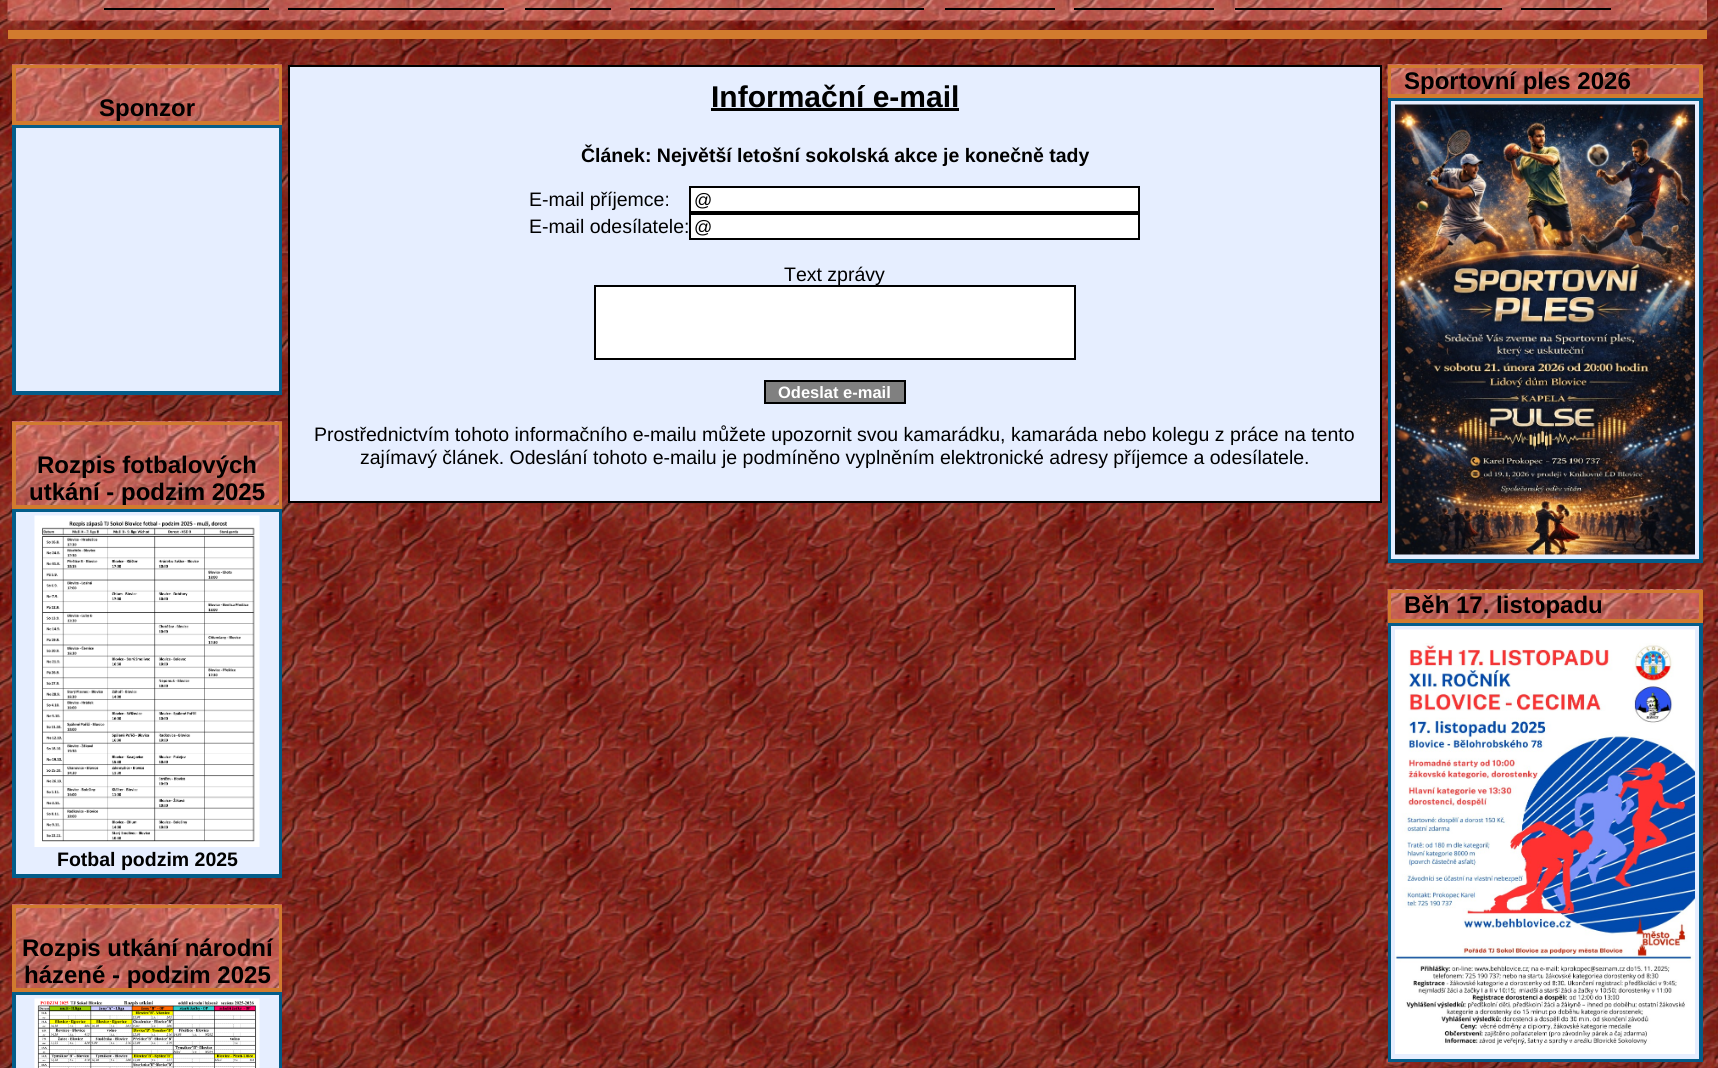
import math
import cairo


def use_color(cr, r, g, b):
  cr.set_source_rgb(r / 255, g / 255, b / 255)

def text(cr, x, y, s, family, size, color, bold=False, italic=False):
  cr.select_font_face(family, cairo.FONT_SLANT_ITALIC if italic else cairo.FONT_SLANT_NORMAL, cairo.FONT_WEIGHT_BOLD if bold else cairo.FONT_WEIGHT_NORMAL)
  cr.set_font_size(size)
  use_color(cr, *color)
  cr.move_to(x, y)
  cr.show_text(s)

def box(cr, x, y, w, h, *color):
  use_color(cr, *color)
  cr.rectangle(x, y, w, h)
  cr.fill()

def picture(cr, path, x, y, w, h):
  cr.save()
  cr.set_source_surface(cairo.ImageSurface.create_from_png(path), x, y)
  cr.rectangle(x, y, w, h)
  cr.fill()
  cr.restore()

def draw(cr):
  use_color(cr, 255, 255, 255)
  cr.paint()
  picture(cr, "img_01.png", 0, 0, 1718, 1068)
  picture(cr, "img_02.png", 7, 0, 1700, 21)
  box(cr, 104, 8, 165, 2, 0, 0, 0)
  box(cr, 288, 8, 216, 2, 0, 0, 0)
  box(cr, 525, 8, 86, 2, 0, 0, 0)
  box(cr, 630, 8, 294, 2, 0, 0, 0)
  box(cr, 945, 8, 110, 2, 0, 0, 0)
  box(cr, 1074, 8, 140, 2, 0, 0, 0)
  box(cr, 1235, 8, 267, 2, 0, 0, 0)
  box(cr, 1521, 8, 90, 2, 0, 0, 0)
  box(cr, 8, 30, 1699, 9, 209, 123, 46)
  picture(cr, "img_03.png", 12, 64, 270, 57)
  cr.rectangle(13, 66, 268, 58)
  cr.stroke()
  cr.rectangle(15, 67, 265, 55)
  cr.stroke()
  box(cr, 16, 128, 263, 263, 230, 238, 255)
  cr.rectangle(13, 126, 268, 268)
  use_color(cr, 3, 93, 138)
  cr.stroke()
  cr.rectangle(15, 127, 265, 265)
  cr.stroke()
  picture(cr, "img_04.png", 12, 421, 270, 84)
  cr.rectangle(13, 423, 268, 85)
  use_color(cr, 209, 123, 46)
  cr.stroke()
  cr.rectangle(15, 424, 265, 82)
  cr.stroke()
  box(cr, 16, 512, 263, 362, 230, 238, 255)
  cr.rectangle(13, 510, 268, 367)
  use_color(cr, 3, 93, 138)
  cr.stroke()
  cr.rectangle(15, 511, 265, 364)
  cr.stroke()
  picture(cr, "img_05.png", 34, 515, 226, 332)
  picture(cr, "img_04.png", 12, 904, 270, 84)
  cr.rectangle(13, 906, 268, 85)
  use_color(cr, 209, 123, 46)
  cr.stroke()
  cr.rectangle(15, 907, 265, 82)
  cr.stroke()
  box(cr, 16, 995, 263, 73, 230, 238, 255)
  cr.rectangle(13, 993, 268, 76)
  use_color(cr, 3, 93, 138)
  cr.stroke()
  cr.rectangle(15, 994, 265, 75)
  cr.stroke()
  picture(cr, "img_06.png", 34, 998, 226, 70)
  use_color(cr, 230, 238, 255)
  cr.rectangle(289, 66, 1092, 436)
  cr.fill_preserve()
  use_color(cr, 0, 0, 0)
  cr.stroke()
  box(cr, 711, 108, 248, 3, 0, 0, 0)
  use_color(cr, 255, 255, 255)
  cr.rectangle(690, 187, 449, 25)
  cr.fill_preserve()
  use_color(cr, 0, 0, 0)
  cr.stroke()
  use_color(cr, 255, 255, 255)
  cr.rectangle(690, 214, 449, 25)
  cr.fill_preserve()
  use_color(cr, 0, 0, 0)
  cr.stroke()
  use_color(cr, 128, 128, 128)
  cr.rectangle(765, 381, 140, 22)
  cr.fill_preserve()
  use_color(cr, 0, 0, 0)
  cr.stroke()
  picture(cr, "img_07.png", 1387, 64, 316, 33)
  cr.rectangle(1389, 66, 313, 31)
  use_color(cr, 209, 123, 46)
  cr.stroke()
  cr.rectangle(1390, 67, 310, 28)
  cr.stroke()
  box(cr, 1391, 101, 308, 458, 230, 238, 255)
  cr.rectangle(1389, 99, 313, 463)
  use_color(cr, 3, 93, 138)
  cr.stroke()
  cr.rectangle(1390, 100, 310, 460)
  cr.stroke()
  picture(cr, "img_08.png", 1395, 104, 300, 451)
  picture(cr, "img_09.png", 1387, 589, 316, 33)
  cr.rectangle(1389, 591, 313, 31)
  use_color(cr, 209, 123, 46)
  cr.stroke()
  cr.rectangle(1390, 592, 310, 28)
  cr.stroke()
  box(cr, 1391, 626, 308, 433, 230, 238, 255)
  cr.rectangle(1389, 624, 313, 437)
  use_color(cr, 3, 93, 138)
  cr.stroke()
  cr.rectangle(1390, 625, 310, 435)
  cr.stroke()
  picture(cr, "img_10.png", 1395, 629, 300, 425)
  text(cr, 99, 116, "Sponzor", "Liberation Sans", 24, (0, 0, 0), bold=True)
  text(cr, 37, 473, "Rozpis fotbalových", "Liberation Sans", 24, (0, 0, 0), bold=True)
  text(cr, 29, 500, "utkání - podzim 2025", "Liberation Sans", 24, (0, 0, 0), bold=True)
  text(cr, 57, 866, "Fotbal podzim 2025", "Liberation Sans", 19.5, (0, 0, 0), bold=True)
  text(cr, 22, 956, "Rozpis utkání národní", "Liberation Sans", 24, (0, 0, 0), bold=True)
  text(cr, 24, 983, "házené - podzim 2025", "Liberation Sans", 24, (0, 0, 0), bold=True)
  text(cr, 711, 107, "Informační e-mail", "Liberation Sans", 30, (0, 0, 0), bold=True)
  text(cr, 581, 162, "Článek: Největší letošní sokolská akce je konečně tady", "Liberation Sans", 19.5, (0, 0, 0), bold=True)
  text(cr, 529, 206, "E-mail příjemce:", "Liberation Sans", 19.5, (0, 0, 0))
  text(cr, 694, 206, "@", "Liberation Sans", 18, (0, 0, 0))
  text(cr, 529, 233, "E-mail odesílatele:", "Liberation Sans", 19.5, (0, 0, 0))
  text(cr, 694, 233, "@", "Liberation Sans", 18, (0, 0, 0))
  text(cr, 784, 281, "Text zprávy", "Liberation Sans", 19.5, (0, 0, 0))
  use_color(cr, 255, 255, 255)
  cr.rectangle(595, 286, 480, 73)
  cr.fill_preserve()
  use_color(cr, 0, 0, 0)
  cr.stroke()
  text(cr, 778, 398, "Odeslat e-mail", "Liberation Sans", 16.5, (255, 255, 255), bold=True)
  text(cr, 314, 441, "Prostřednictvím tohoto informačního e-mailu můžete upozornit svou kamarádku, kamaráda nebo kolegu z práce na tento", "Liberation Sans", 19.5, (0, 0, 0))
  text(cr, 360, 464, "zajímavý článek. Odeslání tohoto e-mailu je podmíněno vyplněním elektronické adresy příjemce a odesílatele.", "Liberation Sans", 19.5, (0, 0, 0))
  text(cr, 1404, 89, "Sportovní ples 2026", "Liberation Sans", 24, (0, 0, 0), bold=True)
  text(cr, 1404, 613, "Běh 17. listopadu", "Liberation Sans", 24, (0, 0, 0), bold=True)


surface = cairo.ImageSurface(cairo.FORMAT_RGB24, 1718, 1068)
cr = cairo.Context(surface)
options = cairo.FontOptions()
options.set_hint_metrics(cairo.HINT_METRICS_OFF)
options.set_hint_style(cairo.HINT_STYLE_NONE)
cr.set_font_options(options)
cr.set_miter_limit(4)
draw(cr)
surface.write_to_png("out.png")
